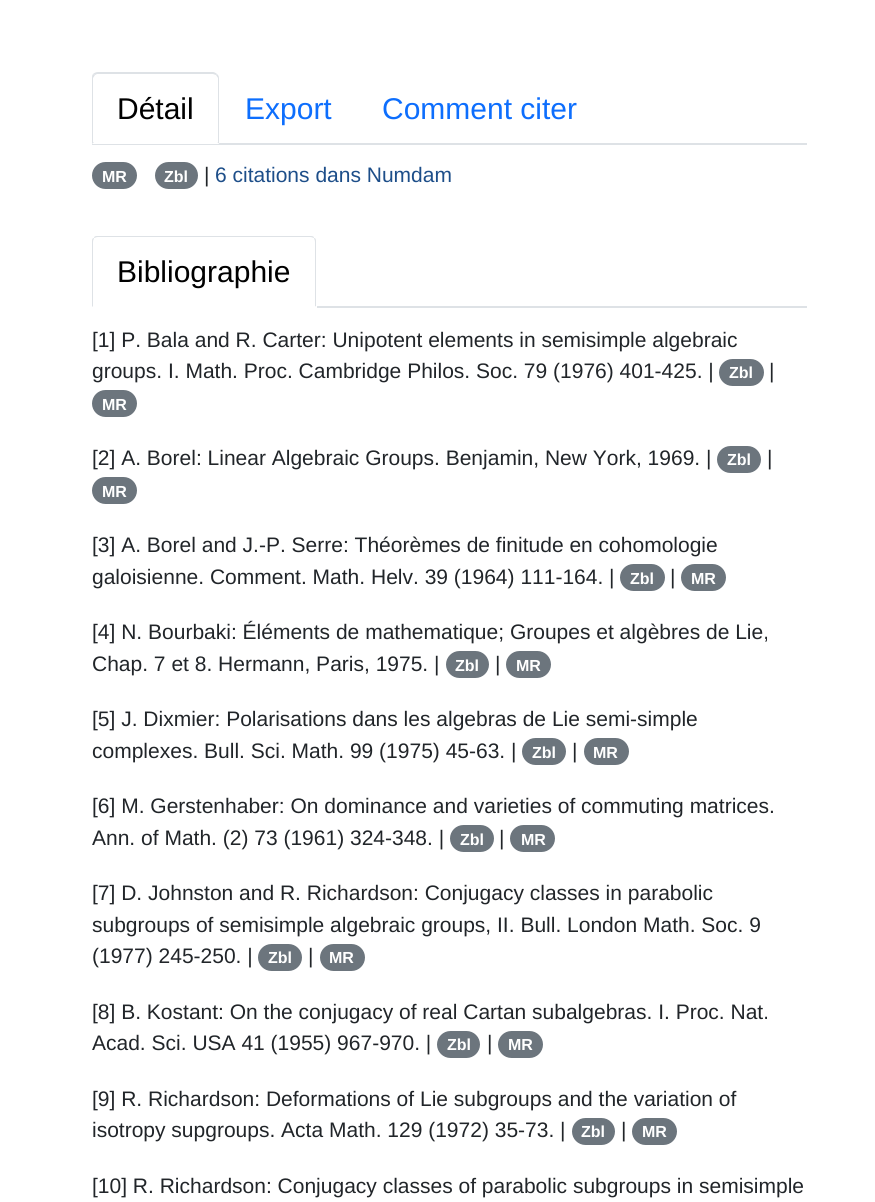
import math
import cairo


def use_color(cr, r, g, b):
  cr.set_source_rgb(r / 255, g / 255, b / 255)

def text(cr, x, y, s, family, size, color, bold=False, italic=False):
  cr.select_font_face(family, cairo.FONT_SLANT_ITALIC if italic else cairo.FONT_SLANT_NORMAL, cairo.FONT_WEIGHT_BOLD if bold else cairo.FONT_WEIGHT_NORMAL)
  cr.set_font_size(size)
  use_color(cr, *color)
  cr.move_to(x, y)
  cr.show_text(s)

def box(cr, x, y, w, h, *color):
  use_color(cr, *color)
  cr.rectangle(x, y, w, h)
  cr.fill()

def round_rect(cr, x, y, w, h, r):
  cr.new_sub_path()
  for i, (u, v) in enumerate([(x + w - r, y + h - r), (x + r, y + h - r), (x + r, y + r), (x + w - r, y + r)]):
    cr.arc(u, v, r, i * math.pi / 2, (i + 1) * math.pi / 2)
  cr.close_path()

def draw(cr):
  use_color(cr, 255, 255, 255)
  cr.paint()
  box(cr, 92, 143, 715, 2, 222, 226, 230)
  use_color(cr, 255, 255, 255)
  cr.new_path()
  cr.move_to(98, 72)
  cr.line_to(213, 72)
  cr.curve_to(216.5, 72, 219, 74.5, 219, 78)
  cr.line_to(219, 144)
  cr.line_to(92, 144)
  cr.line_to(92, 78)
  cr.curve_to(92, 74.5, 94.5, 72, 98, 72)
  cr.close_path()
  cr.fill()
  use_color(cr, 222, 226, 230)
  cr.new_path()
  cr.move_to(98, 72)
  cr.curve_to(96, 72, 94, 73, 93, 74)
  cr.line_to(95, 75)
  cr.line_to(97, 74)
  cr.line_to(156, 74)
  cr.line_to(213, 74)
  cr.line_to(216, 75)
  cr.line_to(217, 74)
  cr.curve_to(216, 73, 214, 72, 213, 72)
  cr.close_path()
  cr.fill()
  cr.new_path()
  cr.move_to(219, 144)
  cr.line_to(219, 78)
  cr.curve_to(219, 76, 218, 75, 217, 74)
  cr.line_to(216, 75)
  cr.line_to(218, 78)
  cr.line_to(218, 142)
  cr.line_to(217, 142)
  cr.close_path()
  cr.fill()
  use_color(cr, 255, 255, 255)
  cr.new_path()
  cr.move_to(219, 144)
  cr.line_to(217, 142)
  cr.line_to(94, 142)
  cr.line_to(92, 144)
  cr.close_path()
  cr.fill()
  use_color(cr, 222, 226, 230)
  cr.new_path()
  cr.move_to(93, 74)
  cr.curve_to(92, 75, 92, 77, 92, 78)
  cr.line_to(92, 144)
  cr.line_to(94, 142)
  cr.line_to(93, 142)
  cr.line_to(93, 78)
  cr.line_to(95, 75)
  cr.close_path()
  cr.fill()
  use_color(cr, 108, 117, 125)
  round_rect(cr, 92, 162, 45, 27, 13.5)
  cr.fill()
  round_rect(cr, 155, 162, 43, 27, 13.5)
  cr.fill()
  box(cr, 317, 306, 490, 2, 222, 226, 230)
  cr.new_path()
  cr.move_to(98, 236)
  cr.curve_to(96, 236, 94, 236, 94, 238)
  cr.curve_to(95, 238, 96, 237, 98, 237)
  cr.line_to(310, 237)
  cr.curve_to(312, 237, 313, 238, 314, 238)
  cr.curve_to(314, 236, 312, 236, 310, 236)
  cr.close_path()
  cr.fill()
  cr.new_path()
  cr.move_to(316, 307)
  cr.line_to(316, 242)
  cr.curve_to(316, 240, 316, 238, 314, 238)
  cr.curve_to(314, 239, 315, 240, 315, 242)
  cr.line_to(315, 306)
  cr.close_path()
  cr.fill()
  use_color(cr, 255, 255, 255)
  cr.new_path()
  cr.move_to(92, 308)
  cr.line_to(93, 306)
  cr.line_to(315, 306)
  cr.line_to(316, 307)
  cr.line_to(316, 308)
  cr.close_path()
  cr.fill()
  use_color(cr, 222, 226, 230)
  cr.new_path()
  cr.move_to(94, 238)
  cr.curve_to(92, 238, 92, 240, 92, 242)
  cr.line_to(92, 307)
  cr.line_to(93, 306)
  cr.line_to(93, 242)
  cr.curve_to(93, 240, 94, 239, 94, 238)
  cr.close_path()
  cr.fill()
  use_color(cr, 108, 117, 125)
  round_rect(cr, 719, 359, 45, 27, 13.5)
  cr.fill()
  round_rect(cr, 92, 390, 45, 27, 13.5)
  cr.fill()
  round_rect(cr, 717, 446, 44, 27, 13.5)
  cr.fill()
  round_rect(cr, 92, 477, 45, 27, 13.5)
  cr.fill()
  round_rect(cr, 620, 564, 45, 27, 13.5)
  cr.fill()
  round_rect(cr, 681, 564, 45, 27, 13.5)
  cr.fill()
  round_rect(cr, 446, 651, 43, 27, 13.5)
  cr.fill()
  round_rect(cr, 506, 651, 45, 27, 13.5)
  cr.fill()
  round_rect(cr, 522, 738, 44, 27, 13.5)
  cr.fill()
  round_rect(cr, 584, 738, 45, 27, 13.5)
  cr.fill()
  round_rect(cr, 450, 825, 44, 27, 13.5)
  cr.fill()
  round_rect(cr, 510, 825, 45, 27, 13.5)
  cr.fill()
  round_rect(cr, 258, 944, 44, 27, 13.5)
  cr.fill()
  round_rect(cr, 320, 944, 45, 27, 13.5)
  cr.fill()
  round_rect(cr, 437, 1031, 43, 27, 13.5)
  cr.fill()
  round_rect(cr, 498, 1031, 45, 27, 13.5)
  cr.fill()
  round_rect(cr, 572, 1118, 43, 27, 13.5)
  cr.fill()
  round_rect(cr, 632, 1118, 45, 27, 13.5)
  cr.fill()
  text(cr, 117, 119, "Détail", "Liberation Sans", 30, (0, 0, 0))
  text(cr, 245, 119, "Export", "Liberation Sans", 30, (13, 110, 253))
  text(cr, 382, 119, "Comment citer", "Liberation Sans", 30, (13, 110, 253))
  text(cr, 102, 182, "MR", "Liberation Sans", 16, (255, 255, 255), bold=True)
  text(cr, 164, 182, "Zbl", "Liberation Sans", 16, (255, 255, 255), bold=True)
  text(cr, 204, 182, "|", "Liberation Sans", 21, (33, 37, 41))
  text(cr, 215, 182, "6 citations dans Numdam", "Liberation Sans", 21, (29, 78, 137))
  text(cr, 117, 282, "Bibliographie", "Liberation Sans", 30, (0, 0, 0))
  text(cr, 92, 347, "[1] P. Bala and R. Carter: Unipotent elements in semisimple algebraic", "Liberation Sans", 21, (33, 37, 41))
  text(cr, 92, 378, "groups. I. Math. Proc. Cambridge Philos. Soc. 79 (1976) 401-425. |", "Liberation Sans", 21, (33, 37, 41))
  text(cr, 729, 378, "Zbl", "Liberation Sans", 16, (255, 255, 255), bold=True)
  text(cr, 769, 378, "|", "Liberation Sans", 21, (33, 37, 41))
  text(cr, 102, 410, "MR", "Liberation Sans", 16, (255, 255, 255), bold=True)
  text(cr, 92, 465, "[2] A. Borel: Linear Algebraic Groups. Benjamin, New York, 1969. |", "Liberation Sans", 21, (33, 37, 41))
  text(cr, 727, 465, "Zbl", "Liberation Sans", 16, (255, 255, 255), bold=True)
  text(cr, 767, 465, "|", "Liberation Sans", 21, (33, 37, 41))
  text(cr, 102, 497, "MR", "Liberation Sans", 16, (255, 255, 255), bold=True)
  text(cr, 92, 552, "[3] A. Borel and J.-P. Serre: Théorèmes de finitude en cohomologie", "Liberation Sans", 21, (33, 37, 41))
  text(cr, 92, 584, "galoisienne. Comment. Math. Helv. 39 (1964) 111-164. |", "Liberation Sans", 21, (33, 37, 41))
  text(cr, 630, 584, "Zbl", "Liberation Sans", 16, (255, 255, 255), bold=True)
  text(cr, 670, 584, "|", "Liberation Sans", 21, (33, 37, 41))
  text(cr, 691, 584, "MR", "Liberation Sans", 16, (255, 255, 255), bold=True)
  text(cr, 92, 639, "[4] N. Bourbaki: Éléments de mathematique; Groupes et algèbres de Lie,", "Liberation Sans", 21, (33, 37, 41))
  text(cr, 92, 671, "Chap. 7 et 8. Hermann, Paris, 1975. |", "Liberation Sans", 21, (33, 37, 41))
  text(cr, 455, 671, "Zbl", "Liberation Sans", 16, (255, 255, 255), bold=True)
  text(cr, 495, 671, "|", "Liberation Sans", 21, (33, 37, 41))
  text(cr, 516, 671, "MR", "Liberation Sans", 16, (255, 255, 255), bold=True)
  text(cr, 92, 726, "[5] J. Dixmier: Polarisations dans les algebras de Lie semi-simple", "Liberation Sans", 21, (33, 37, 41))
  text(cr, 92, 758, "complexes. Bull. Sci. Math. 99 (1975) 45-63. |", "Liberation Sans", 21, (33, 37, 41))
  text(cr, 532, 758, "Zbl", "Liberation Sans", 16, (255, 255, 255), bold=True)
  text(cr, 572, 758, "|", "Liberation Sans", 21, (33, 37, 41))
  text(cr, 593, 758, "MR", "Liberation Sans", 16, (255, 255, 255), bold=True)
  text(cr, 92, 813, "[6] M. Gerstenhaber: On dominance and varieties of commuting matrices.", "Liberation Sans", 21, (33, 37, 41))
  text(cr, 92, 845, "Ann. of Math. (2) 73 (1961) 324-348. |", "Liberation Sans", 21, (33, 37, 41))
  text(cr, 460, 845, "Zbl", "Liberation Sans", 16, (255, 255, 255), bold=True)
  text(cr, 499, 845, "|", "Liberation Sans", 21, (33, 37, 41))
  text(cr, 521, 845, "MR", "Liberation Sans", 16, (255, 255, 255), bold=True)
  text(cr, 92, 900, "[7] D. Johnston and R. Richardson: Conjugacy classes in parabolic", "Liberation Sans", 21, (33, 37, 41))
  text(cr, 92, 932, "subgroups of semisimple algebraic groups, II. Bull. London Math. Soc. 9", "Liberation Sans", 21, (33, 37, 41))
  text(cr, 92, 963, "(1977) 245-250. |", "Liberation Sans", 21, (33, 37, 41))
  text(cr, 268, 963, "Zbl", "Liberation Sans", 16, (255, 255, 255), bold=True)
  text(cr, 308, 963, "|", "Liberation Sans", 21, (33, 37, 41))
  text(cr, 329, 963, "MR", "Liberation Sans", 16, (255, 255, 255), bold=True)
  text(cr, 92, 1019, "[8] B. Kostant: On the conjugacy of real Cartan subalgebras. I. Proc. Nat.", "Liberation Sans", 21, (33, 37, 41))
  text(cr, 92, 1050, "Acad. Sci. USA 41 (1955) 967-970. |", "Liberation Sans", 21, (33, 37, 41))
  text(cr, 447, 1050, "Zbl", "Liberation Sans", 16, (255, 255, 255), bold=True)
  text(cr, 487, 1050, "|", "Liberation Sans", 21, (33, 37, 41))
  text(cr, 508, 1050, "MR", "Liberation Sans", 16, (255, 255, 255), bold=True)
  text(cr, 92, 1106, "[9] R. Richardson: Deformations of Lie subgroups and the variation of", "Liberation Sans", 21, (33, 37, 41))
  text(cr, 92, 1137, "isotropy supgroups. Acta Math. 129 (1972) 35-73. |", "Liberation Sans", 21, (33, 37, 41))
  text(cr, 581, 1137, "Zbl", "Liberation Sans", 16, (255, 255, 255), bold=True)
  text(cr, 621, 1137, "|", "Liberation Sans", 21, (33, 37, 41))
  text(cr, 642, 1137, "MR", "Liberation Sans", 16, (255, 255, 255), bold=True)
  text(cr, 92, 1193, "[10] R. Richardson: Conjugacy classes of parabolic subgroups in semisimple", "Liberation Sans", 21, (33, 37, 41))


surface = cairo.ImageSurface(cairo.FORMAT_RGB24, 875, 1202)
cr = cairo.Context(surface)
options = cairo.FontOptions()
options.set_hint_metrics(cairo.HINT_METRICS_OFF)
options.set_hint_style(cairo.HINT_STYLE_NONE)
cr.set_font_options(options)
cr.set_miter_limit(4)
draw(cr)
surface.write_to_png("out.png")
